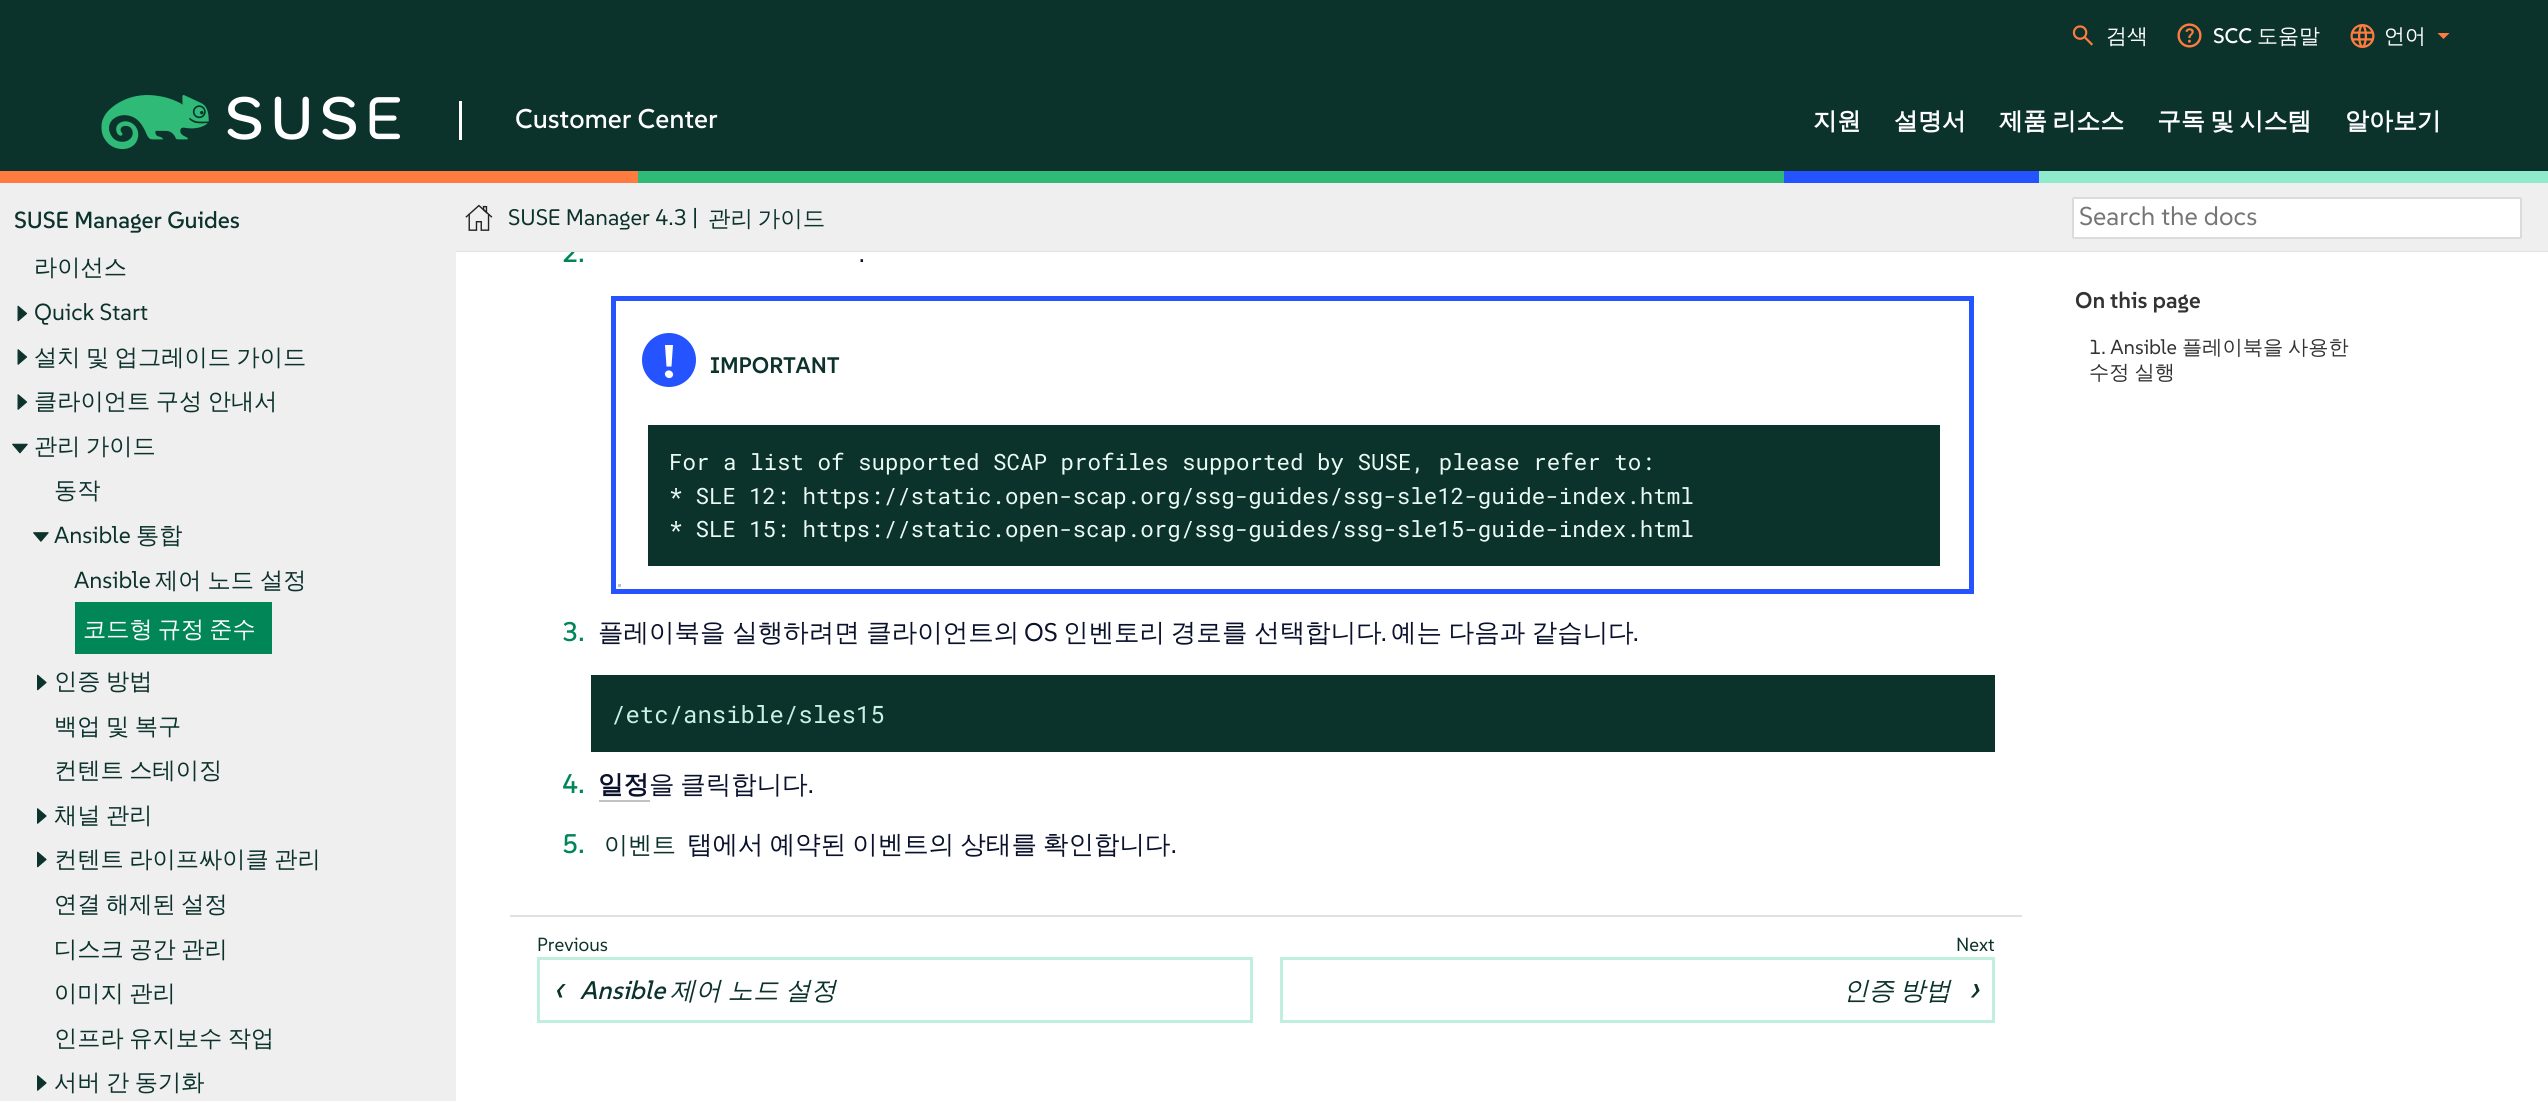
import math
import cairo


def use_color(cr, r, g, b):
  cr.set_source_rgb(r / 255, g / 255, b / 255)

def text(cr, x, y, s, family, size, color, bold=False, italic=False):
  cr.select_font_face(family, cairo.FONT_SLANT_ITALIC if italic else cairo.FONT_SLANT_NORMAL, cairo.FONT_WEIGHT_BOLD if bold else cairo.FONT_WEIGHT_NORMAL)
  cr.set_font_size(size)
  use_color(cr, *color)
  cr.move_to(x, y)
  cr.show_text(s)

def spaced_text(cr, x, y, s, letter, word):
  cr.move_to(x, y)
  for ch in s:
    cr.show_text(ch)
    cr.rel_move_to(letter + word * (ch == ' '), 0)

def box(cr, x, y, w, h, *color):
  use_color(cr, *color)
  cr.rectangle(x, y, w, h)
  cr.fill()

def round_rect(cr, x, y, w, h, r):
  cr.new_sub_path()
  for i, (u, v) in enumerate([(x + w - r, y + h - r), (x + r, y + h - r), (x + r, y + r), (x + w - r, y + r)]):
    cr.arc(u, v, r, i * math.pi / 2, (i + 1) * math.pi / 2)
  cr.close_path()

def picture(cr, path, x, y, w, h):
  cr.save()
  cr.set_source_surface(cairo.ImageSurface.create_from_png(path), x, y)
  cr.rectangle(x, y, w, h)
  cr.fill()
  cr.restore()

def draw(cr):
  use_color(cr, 255, 255, 255)
  cr.paint()
  box(cr, 0, 0, 2548, 171, 12, 50, 44)
  picture(cr, "img_01.png", 2072, 25, 21, 21)
  picture(cr, "img_02.png", 2177, 23, 25, 25)
  picture(cr, "img_03.png", 2350, 24, 25, 24)
  use_color(cr, 254, 124, 63)
  cr.new_path()
  cr.move_to(2443.5, 39)
  cr.line_to(2437.5, 33)
  cr.line_to(2449.5, 33)
  cr.close_path()
  cr.fill()
  picture(cr, "img_04.png", 101, 95, 300, 54)
  box(cr, 459, 101, 3, 39, 255, 255, 255)
  box(cr, 0, 171, 638, 12, 254, 124, 63)
  box(cr, 638, 171, 1146, 12, 48, 186, 120)
  box(cr, 1784, 171, 255, 12, 36, 83, 255)
  box(cr, 2039, 171, 509, 12, 144, 235, 205)
  box(cr, 0, 183, 456, 918, 239, 239, 239)
  picture(cr, "img_05.png", 17, 305, 11, 17)
  picture(cr, "img_06.png", 17, 349, 11, 16)
  picture(cr, "img_06.png", 17, 394, 11, 16)
  picture(cr, "img_07.png", 12, 443, 16, 11)
  picture(cr, "img_08.png", 33, 532, 16, 10)
  box(cr, 75, 602, 197, 52, 0, 134, 87)
  picture(cr, "img_09.png", 37, 674, 10, 17)
  picture(cr, "img_10.png", 37, 808, 10, 16)
  picture(cr, "img_09.png", 37, 851, 10, 17)
  picture(cr, "img_10.png", 37, 1075, 10, 16)
  cr.rectangle(613.5, 298.5, 1358, 293)
  use_color(cr, 36, 83, 255)
  cr.set_line_width(5)
  cr.stroke()
  box(cr, 618, 584, 3, 3, 192, 194, 196)
  use_color(cr, 36, 83, 255)
  cr.arc(669, 360, 27, 0, 2 * math.pi)
  cr.fill()
  use_color(cr, 255, 255, 255)
  cr.new_path()
  cr.move_to(666.5, 366.5)
  cr.line_to(665, 345)
  cr.line_to(673, 345)
  cr.line_to(671.5, 366.5)
  cr.close_path()
  cr.move_to(666, 371.5)
  cr.curve_to(670, 368, 675.5, 373.5, 672, 377)
  cr.curve_to(668, 380.5, 662.5, 375, 666, 371.5)
  cr.close_path()
  cr.fill()
  box(cr, 648, 425, 1292, 141, 12, 50, 44)
  box(cr, 591, 675, 1404, 77, 12, 50, 44)
  box(cr, 599, 800, 51, 2, 192, 194, 196)
  box(cr, 510, 915, 1512, 2, 225, 225, 225)
  cr.rectangle(538.5, 958.5, 713, 63)
  use_color(cr, 192, 239, 222)
  cr.set_line_width(3)
  cr.stroke()
  cr.rectangle(1281.5, 958.5, 712, 63)
  cr.stroke()
  text(cr, 2106, 43, "검색", "WenQuanYi Zen Hei Medium", 21, (255, 255, 255))
  text(cr, 2213, 43, "SCC", "SUSE Medium", 21, (255, 255, 255))
  text(cr, 2257, 43, "도움말", "WenQuanYi Zen Hei Medium", 21, (255, 255, 255))
  text(cr, 2384, 43, "언어", "WenQuanYi Zen Hei Medium", 21, (255, 255, 255))
  text(cr, 515, 128, "Customer Center", "SUSE Medium", 27, (255, 255, 255))
  text(cr, 1813, 129, "지원", "WenQuanYi Zen Hei", 24, (255, 255, 255), bold=True)
  text(cr, 1894, 129, "설명서", "WenQuanYi Zen Hei", 24, (255, 255, 255), bold=True)
  spaced_text(cr, 1999, 129, "제품 리소스", 0, -2)
  spaced_text(cr, 2157, 129, "구독 및 시스템", 0, -2)
  text(cr, 2345, 129, "알아보기", "WenQuanYi Zen Hei", 24, (255, 255, 255), bold=True)
  text(cr, 14, 228, "SUSE Manager Guides", "SUSE Medium", 23.25, (12, 50, 44))
  text(cr, 34, 275, "라이선스", "WenQuanYi Zen Hei Medium", 23.25, (12, 50, 44))
  text(cr, 34, 320, "Quick Start", "SUSE", 23.25, (12, 50, 44))
  cr.select_font_face("WenQuanYi Zen Hei Medium")
  spaced_text(cr, 34, 365, "설치 및 업그레이드 가이드", 0, -1.5)
  spaced_text(cr, 34, 409, "클라이언트 구성 안내서", 0, -1.5)
  spaced_text(cr, 34, 454, "관리 가이드", 0, -1.5)
  text(cr, 54, 498, "동작", "WenQuanYi Zen Hei Medium", 23.25, (12, 50, 44))
  text(cr, 54, 543, "Ansible", "SUSE", 23.25, (12, 50, 44))
  text(cr, 136, 543, "통합", "WenQuanYi Zen Hei Medium", 23.25, (12, 50, 44))
  text(cr, 74, 588, "Ansible", "SUSE", 23.25, (12, 50, 44))
  cr.select_font_face("WenQuanYi Zen Hei Medium")
  spaced_text(cr, 155, 588, "제어 노드 설정", 0, -1)
  use_color(cr, 255, 255, 255)
  spaced_text(cr, 83, 637, "코드형 규정 준수", 0, -2)
  use_color(cr, 12, 50, 44)
  spaced_text(cr, 54, 689, "인증 방법", 0, -1.5)
  spaced_text(cr, 54, 734, "백업 및 복구", 0, -1.5)
  spaced_text(cr, 54, 778, "컨텐트 스테이징", 0, -1.5)
  spaced_text(cr, 54, 823, "채널 관리", 0, -1.5)
  spaced_text(cr, 54, 867, "컨텐트 라이프싸이클 관리", 0, -1.5)
  spaced_text(cr, 54, 912, "연결 해제된 설정", 0, -1.5)
  spaced_text(cr, 54, 957, "디스크 공간 관리", 0, -1.5)
  spaced_text(cr, 54, 1001, "이미지 관리", 0, -1.5)
  spaced_text(cr, 54, 1046, "인프라 유지보수 작업", 0, -1.5)
  spaced_text(cr, 54, 1090, "서버 간 동기화", 0, -1.5)
  text(cr, 562, 262, "2.", "SUSE Medium", 27, (0, 134, 87))
  use_color(cr, 225, 225, 225)
  cr.new_path()
  cr.move_to(456, 250)
  cr.line_to(456, 252)
  cr.line_to(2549, 252)
  cr.line_to(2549, 185)
  cr.line_to(2548, 185)
  cr.line_to(2548, 250)
  cr.close_path()
  cr.fill()
  box(cr, 456, 183, 2092, 68, 239, 239, 239)
  use_color(cr, 255, 255, 255)
  round_rect(cr, 2073, 198, 448, 40, 1)
  cr.fill_preserve()
  use_color(cr, 219, 219, 219)
  cr.set_line_width(2)
  cr.stroke()
  text(cr, 2079, 225, "Search the docs", "SUSE", 25.75, (117, 117, 117))
  cr.select_font_face("WenQuanYi Zen Hei Medium")
  cr.set_font_size(22.5)
  use_color(cr, 12, 50, 44)
  spaced_text(cr, 708, 226, "관리 가이드", 0, -2)
  text(cr, 508, 225, "SUSE Manager 4.3 |", "SUSE", 22.5, (12, 50, 44))
  picture(cr, "img_11.png", 465, 204, 28, 27)
  text(cr, 859, 262, ".", "SUSE", 25.5, (10, 17, 43))
  text(cr, 710, 373, "IMPORTANT", "SUSE SemiBold", 22.5, (12, 50, 44))
  text(cr, 669, 470, "For a list of supported SCAP profiles supported by SUSE, please refer to:", "Roboto Mono", 22.5, (234, 250, 244))
  spaced_text(cr, 669, 504, "* SLE 12: https://static.open-scap.org/ssg-guides/ssg-sle12-guide-index.html", 0, -0.5)
  spaced_text(cr, 669, 537, "* SLE 15: https://static.open-scap.org/ssg-guides/ssg-sle15-guide-index.html", 0, -0.5)
  text(cr, 562, 641, "3.", "SUSE Medium", 27, (0, 134, 87))
  cr.select_font_face("WenQuanYi Zen Hei Medium")
  cr.set_font_size(25.5)
  use_color(cr, 10, 17, 43)
  spaced_text(cr, 598, 641, "플레이북을 실행하려면 클라이언트의", 0, -1)
  text(cr, 1024, 641, "OS", "SUSE", 25.5, (10, 17, 43))
  cr.select_font_face("WenQuanYi Zen Hei Medium")
  spaced_text(cr, 1063, 641, "인벤토리 경로", 0, -2)
  spaced_text(cr, 1222, 641, "를 선택합니다", 0, -1)
  text(cr, 1381, 641, ".", "SUSE", 25.5, (10, 17, 43))
  cr.select_font_face("WenQuanYi Zen Hei Medium")
  spaced_text(cr, 1391, 641, "예는 다음과 같습니다", 0, -1)
  text(cr, 1633, 641, ".", "SUSE", 25.5, (10, 17, 43))
  text(cr, 611, 723, "/etc/ansible/sles15", "Roboto Mono", 24, (199, 241, 227))
  text(cr, 562, 793, "4.", "SUSE Medium", 27, (0, 134, 87))
  text(cr, 598, 793, "일정", "WenQuanYi Zen Hei", 25.5, (10, 17, 43), bold=True)
  cr.select_font_face("WenQuanYi Zen Hei Medium")
  spaced_text(cr, 649, 793, "을 클릭합니다", 0, -2)
  text(cr, 808, 793, ".", "SUSE", 25.5, (10, 17, 43))
  text(cr, 562, 853, "5.", "SUSE Medium", 27, (0, 134, 87))
  text(cr, 604, 853, "이벤트", "WenQuanYi Zen Hei Medium", 24, (12, 50, 44))
  cr.set_font_size(25.5)
  use_color(cr, 10, 17, 43)
  spaced_text(cr, 687, 853, "탭에서 예약된 이벤트의 상태를 확인합니다", 0, -1.5)
  text(cr, 1171, 853, ".", "SUSE", 25.5, (10, 17, 43))
  text(cr, 537, 951, "Previous", "SUSE", 19, (12, 50, 44))
  text(cr, 553, 1001, "‹", "SUSE", 38, (12, 50, 44), italic=True)
  text(cr, 580, 999, "Ansible", "SUSE Medium", 25.5, (12, 50, 44), italic=True)
  cr.select_font_face("WenQuanYi Zen Hei Medium", cairo.FONT_SLANT_ITALIC)
  spaced_text(cr, 670, 999, "제어 노드 설정", 0, -1)
  text(cr, 1956, 951, "Next", "SUSE", 19, (12, 50, 44))
  cr.select_font_face("WenQuanYi Zen Hei Medium", cairo.FONT_SLANT_ITALIC)
  cr.set_font_size(25.5)
  spaced_text(cr, 1843, 999, "인증 방법", 0, -2)
  text(cr, 1968, 1001, "›", "SUSE", 38, (12, 50, 44), italic=True)
  text(cr, 2075, 308, "On this page", "SUSE SemiBold", 22.5, (51, 51, 51))
  text(cr, 2089, 354, "1. Ansible", "SUSE", 20.25, (51, 51, 51))
  text(cr, 2182, 354, "플레이북을", "WenQuanYi Zen Hei Medium", 20.25, (51, 51, 51))
  text(cr, 2288, 354, "사용한", "WenQuanYi Zen Hei Medium", 20.25, (51, 51, 51))
  spaced_text(cr, 2089, 379, "수정 실행", 0, -1)


surface = cairo.ImageSurface(cairo.FORMAT_RGB24, 2548, 1103)
cr = cairo.Context(surface)
options = cairo.FontOptions()
options.set_hint_metrics(cairo.HINT_METRICS_OFF)
options.set_hint_style(cairo.HINT_STYLE_NONE)
cr.set_font_options(options)
cr.set_miter_limit(4)
draw(cr)
surface.write_to_png("out.png")
